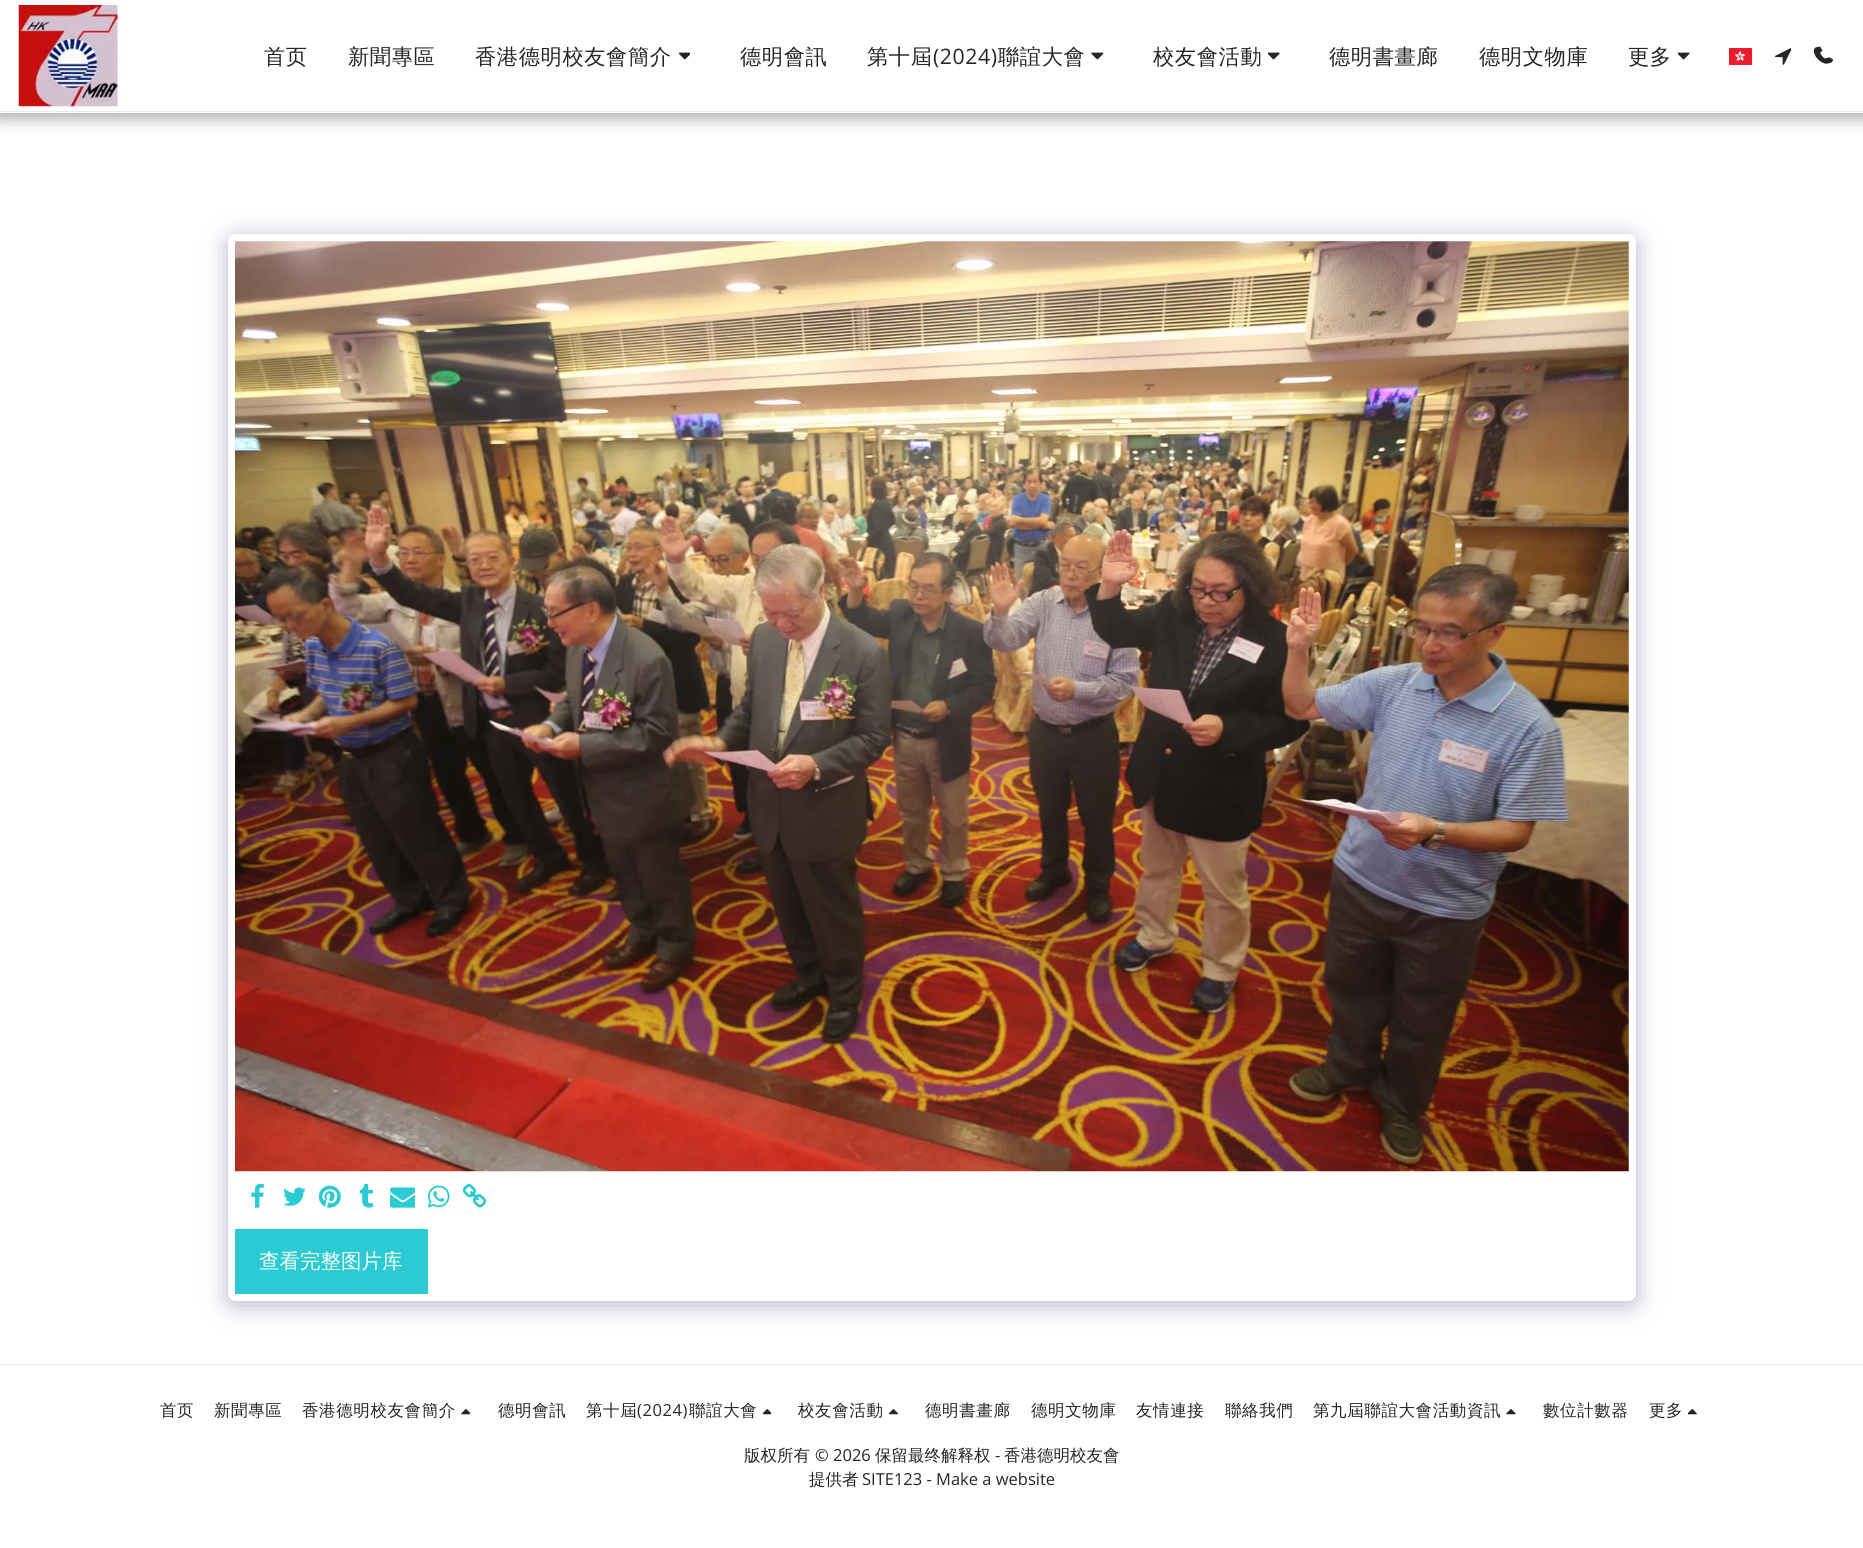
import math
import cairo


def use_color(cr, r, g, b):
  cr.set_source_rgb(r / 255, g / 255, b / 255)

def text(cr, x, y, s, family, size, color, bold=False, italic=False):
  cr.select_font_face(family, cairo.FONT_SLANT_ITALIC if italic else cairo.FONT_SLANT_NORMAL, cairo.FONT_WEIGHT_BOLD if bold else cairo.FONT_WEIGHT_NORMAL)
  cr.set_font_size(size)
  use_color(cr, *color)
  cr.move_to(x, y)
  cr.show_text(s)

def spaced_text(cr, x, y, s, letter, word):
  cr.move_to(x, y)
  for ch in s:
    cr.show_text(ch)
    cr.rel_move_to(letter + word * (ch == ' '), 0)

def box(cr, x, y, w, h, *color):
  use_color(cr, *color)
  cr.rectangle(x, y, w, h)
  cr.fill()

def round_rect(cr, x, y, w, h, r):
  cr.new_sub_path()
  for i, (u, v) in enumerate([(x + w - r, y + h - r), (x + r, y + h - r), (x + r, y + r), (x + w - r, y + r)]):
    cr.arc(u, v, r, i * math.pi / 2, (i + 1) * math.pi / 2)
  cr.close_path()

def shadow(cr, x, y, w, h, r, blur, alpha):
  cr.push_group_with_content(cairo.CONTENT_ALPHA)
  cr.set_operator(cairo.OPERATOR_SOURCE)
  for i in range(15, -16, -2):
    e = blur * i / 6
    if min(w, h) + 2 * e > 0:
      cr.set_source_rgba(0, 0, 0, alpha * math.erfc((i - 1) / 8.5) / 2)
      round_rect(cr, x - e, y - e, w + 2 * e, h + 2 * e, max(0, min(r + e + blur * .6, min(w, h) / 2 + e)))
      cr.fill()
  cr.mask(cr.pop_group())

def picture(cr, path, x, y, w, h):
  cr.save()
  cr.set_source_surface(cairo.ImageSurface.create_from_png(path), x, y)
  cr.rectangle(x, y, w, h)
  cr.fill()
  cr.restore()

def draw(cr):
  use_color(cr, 255, 255, 255)
  cr.paint()
  use_color(cr, 0, 0, 0)
  shadow(cr, -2, 0, 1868, 118, 0, 7.5, 0.35)
  box(cr, 0, 0, 1863, 113, 255, 255, 255)
  box(cr, 0, 111, 1863, 1, 235, 235, 235)
  picture(cr, "img_01.png", 18, 5, 100, 102)
  picture(cr, "img_02.png", 679, 52, 11, 8)
  picture(cr, "img_03.png", 1091, 52, 13, 8)
  picture(cr, "img_04.png", 1268, 52, 12, 8)
  picture(cr, "img_04.png", 1678, 52, 12, 8)
  picture(cr, "img_05.png", 1729, 48, 24, 17)
  picture(cr, "img_06.png", 1775, 48, 16, 17)
  picture(cr, "img_07.png", 1817, 46, 16, 18)
  picture(cr, "img_08.png", 1813, 47, 16, 17)
  cr.save()
  cr.set_fill_rule(cairo.FILL_RULE_EVEN_ODD)
  cr.new_path()
  cr.move_to(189, 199)
  cr.line_to(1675, 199)
  cr.line_to(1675, 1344)
  cr.line_to(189, 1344)
  cr.close_path()
  cr.move_to(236, 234)
  cr.line_to(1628, 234)
  cr.curve_to(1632.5, 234, 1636, 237.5, 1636, 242)
  cr.line_to(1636, 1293)
  cr.curve_to(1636, 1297.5, 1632.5, 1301, 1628, 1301)
  cr.line_to(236, 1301)
  cr.curve_to(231.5, 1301, 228, 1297.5, 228, 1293)
  cr.line_to(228, 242)
  cr.curve_to(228, 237.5, 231.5, 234, 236, 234)
  cr.close_path()
  cr.clip()
  use_color(cr, 77, 63, 122)
  shadow(cr, 228, 238, 1408, 1067, 8, 12.5, 0.4)
  cr.restore()
  picture(cr, "img_09.png", 235, 241, 1394, 931)
  picture(cr, "img_10.png", 251, 1184, 13, 24)
  picture(cr, "img_11.png", 283, 1187, 23, 19)
  picture(cr, "img_12.png", 319, 1185, 22, 23)
  picture(cr, "img_13.png", 359, 1184, 15, 24)
  picture(cr, "img_14.png", 390, 1187, 25, 21)
  picture(cr, "img_15.png", 428, 1185, 22, 23)
  picture(cr, "img_16.png", 463, 1184, 23, 24)
  box(cr, 235, 1229, 193, 65, 42, 203, 210)
  box(cr, 0, 1364, 1863, 1, 235, 235, 235)
  picture(cr, "img_17.png", 461, 1409, 9, 6)
  picture(cr, "img_18.png", 763, 1409, 8, 6)
  picture(cr, "img_19.png", 889, 1409, 10, 6)
  picture(cr, "img_20.png", 1506, 1409, 10, 6)
  picture(cr, "img_21.png", 1688, 1409, 9, 6)
  cr.select_font_face("WenQuanYi Zen Hei Medium")
  cr.set_font_size(21.25)
  use_color(cr, 37, 37, 37)
  spaced_text(cr, 264, 64, "首页", 0.6, 0)
  spaced_text(cr, 348, 64, "新聞專區", 0.6, 0)
  spaced_text(cr, 475, 64, "香港德明校友會簡介", 0.6, 0)
  spaced_text(cr, 740, 64, "德明會訊", 0.6, 0)
  spaced_text(cr, 867, 64, "第十屆", 0.6, 0)
  cr.select_font_face("Open Sans")
  spaced_text(cr, 933, 64, "(2024)", 0.6, 0)
  cr.select_font_face("WenQuanYi Zen Hei Medium")
  spaced_text(cr, 998, 64, "聯誼大會", 0.6, 0)
  spaced_text(cr, 1153, 64, "校友會活動", 0.6, 0)
  spaced_text(cr, 1329, 64, "德明書畫廊", 0.6, 0)
  spaced_text(cr, 1479, 64, "德明文物庫", 0.6, 0)
  spaced_text(cr, 1628, 64, "更多", 0.6, 0)
  text(cr, 259, 1268, "查看完整图片库", "WenQuanYi Zen Hei Medium", 20.5, (255, 255, 255))
  cr.set_font_size(16.5)
  use_color(cr, 37, 37, 37)
  spaced_text(cr, 160, 1416, "首页", 0.6, 0)
  spaced_text(cr, 214, 1416, "新聞專區", 0.6, 0)
  spaced_text(cr, 302, 1416, "香港德明校友會簡介", 0.6, 0)
  spaced_text(cr, 498, 1416, "德明會訊", 0.6, 0)
  spaced_text(cr, 586, 1416, "第十屆", 0.6, 0)
  cr.select_font_face("Open Sans")
  spaced_text(cr, 637, 1416, "(2024)", 0.6, 0)
  cr.select_font_face("WenQuanYi Zen Hei Medium")
  spaced_text(cr, 689, 1416, "聯誼大會", 0.6, 0)
  spaced_text(cr, 798, 1416, "校友會活動", 0.6, 0)
  spaced_text(cr, 925, 1416, "德明書畫廊", 0.6, 0)
  spaced_text(cr, 1031, 1416, "德明文物庫", 0.6, 0)
  spaced_text(cr, 1136, 1416, "友情連接", 0.6, 0)
  spaced_text(cr, 1225, 1416, "聯絡我們", 0.6, 0)
  spaced_text(cr, 1313, 1416, "第九屆聯誼大會活動資訊", 0.6, 0)
  spaced_text(cr, 1543, 1416, "數位計數器", 0.6, 0)
  spaced_text(cr, 1649, 1416, "更多", 0.6, 0)
  text(cr, 744, 1461, "版权所有", "WenQuanYi Zen Hei Medium", 16.5, (37, 37, 37))
  text(cr, 815, 1461, "© 2026", "Open Sans", 16.5, (37, 37, 37))
  text(cr, 875, 1461, "保留最终解释权", "WenQuanYi Zen Hei Medium", 16.5, (37, 37, 37))
  text(cr, 995, 1461, "-", "Open Sans", 16.5, (37, 37, 37))
  text(cr, 1004, 1461, "香港德明校友會", "WenQuanYi Zen Hei Medium", 16.5, (37, 37, 37))
  text(cr, 809, 1485, "提供者", "WenQuanYi Zen Hei Medium", 16.5, (37, 37, 37))
  text(cr, 862, 1485, "SITE123 - Make a website", "Open Sans", 16.5, (37, 37, 37))


surface = cairo.ImageSurface(cairo.FORMAT_RGB24, 1863, 1548)
cr = cairo.Context(surface)
options = cairo.FontOptions()
options.set_hint_metrics(cairo.HINT_METRICS_OFF)
options.set_hint_style(cairo.HINT_STYLE_NONE)
cr.set_font_options(options)
cr.set_miter_limit(4)
draw(cr)
surface.write_to_png("out.png")
